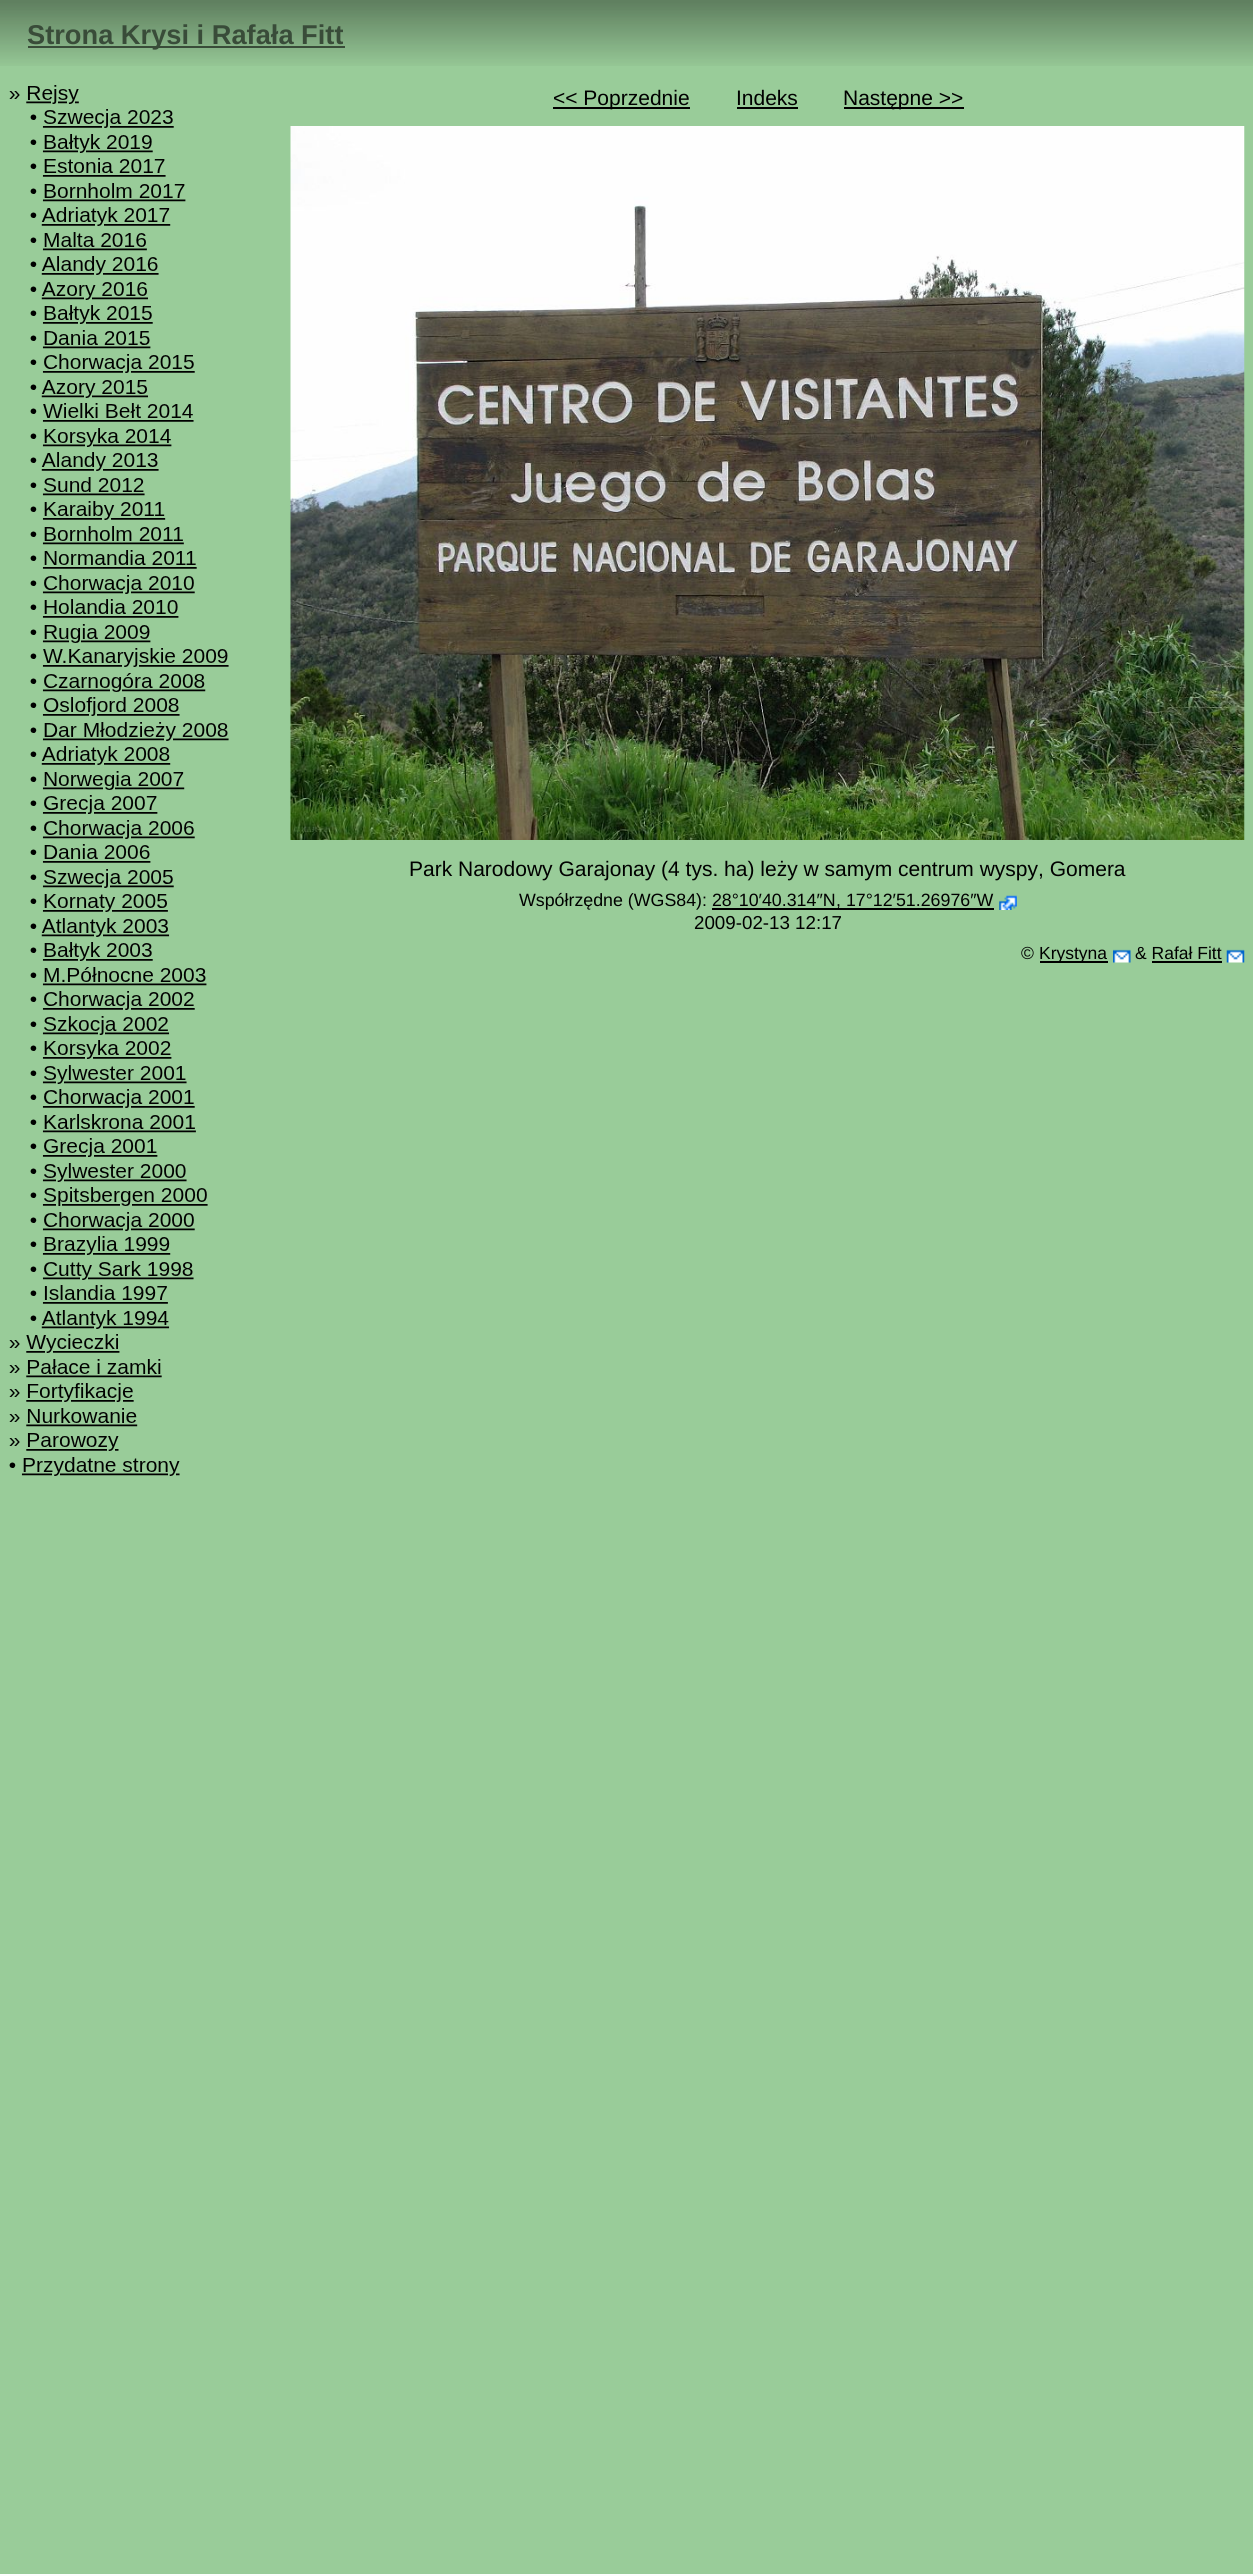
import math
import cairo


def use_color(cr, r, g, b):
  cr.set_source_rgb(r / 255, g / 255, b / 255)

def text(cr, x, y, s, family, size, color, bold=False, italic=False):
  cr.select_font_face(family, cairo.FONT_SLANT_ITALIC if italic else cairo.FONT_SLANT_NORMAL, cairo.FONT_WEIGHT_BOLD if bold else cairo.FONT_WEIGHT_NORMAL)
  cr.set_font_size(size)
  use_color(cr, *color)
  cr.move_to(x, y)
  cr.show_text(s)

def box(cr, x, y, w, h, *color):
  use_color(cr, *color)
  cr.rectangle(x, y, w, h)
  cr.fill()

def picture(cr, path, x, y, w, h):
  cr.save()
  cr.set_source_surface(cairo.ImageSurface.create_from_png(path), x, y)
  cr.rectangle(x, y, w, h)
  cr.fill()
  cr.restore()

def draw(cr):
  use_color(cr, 153, 204, 153)
  cr.paint()
  picture(cr, "img_01.png", 0, 0, 1253, 66)
  box(cr, 28, 46, 317, 2, 57, 76, 57)
  picture(cr, "img_02.png", 9, 85, 220, 1391)
  box(cr, 553, 107, 137, 2, 0, 0, 0)
  box(cr, 737, 107, 61, 2, 0, 0, 0)
  box(cr, 844, 107, 120, 2, 0, 0, 0)
  picture(cr, "img_03.png", 290, 126, 955, 714)
  box(cr, 712, 908, 282, 2, 0, 0, 0)
  picture(cr, "img_04.png", 999, 895, 18, 15)
  box(cr, 1040, 961, 68, 2, 0, 0, 0)
  picture(cr, "img_05.png", 1113, 949, 18, 14)
  picture(cr, "img_06.png", 1226, 949, 19, 14)
  box(cr, 1152, 961, 70, 2, 0, 0, 0)
  text(cr, 27, 44, "Strona Krysi i Rafała Fitt", "Liberation Sans", 27.25, (57, 76, 57), bold=True)
  text(cr, 553, 105, "<< Poprzednie", "Liberation Sans", 21, (0, 0, 0))
  text(cr, 736, 105, "Indeks", "Liberation Sans", 21, (0, 0, 0))
  text(cr, 843, 105, "Następne >>", "Liberation Sans", 21, (0, 0, 0))
  text(cr, 409, 876, "Park Narodowy Garajonay (4 tys. ha) leży w samym centrum wyspy, Gomera", "Liberation Sans", 21, (0, 0, 0))
  text(cr, 519, 906, "Współrzędne (WGS84): 28°10′40.314″N", "Liberation Sans", 17.8, (0, 0, 0))
  text(cr, 836, 906, ", 17°12′51.26976″W", "Liberation Sans", 17.8, (0, 0, 0))
  text(cr, 694, 929, "2009-02-13 12:17", "Liberation Sans", 18.75, (0, 0, 0))
  text(cr, 1021, 959, "©", "Liberation Sans", 17.5, (0, 0, 0))
  text(cr, 1039, 959, "Krystyna", "Liberation Sans", 17.5, (0, 0, 0))
  text(cr, 1135, 959, "& Rafał Fitt", "Liberation Sans", 17.5, (0, 0, 0))


surface = cairo.ImageSurface(cairo.FORMAT_RGB24, 1253, 2574)
cr = cairo.Context(surface)
options = cairo.FontOptions()
options.set_hint_metrics(cairo.HINT_METRICS_OFF)
options.set_hint_style(cairo.HINT_STYLE_NONE)
cr.set_font_options(options)
cr.set_miter_limit(4)
draw(cr)
surface.write_to_png("out.png")
